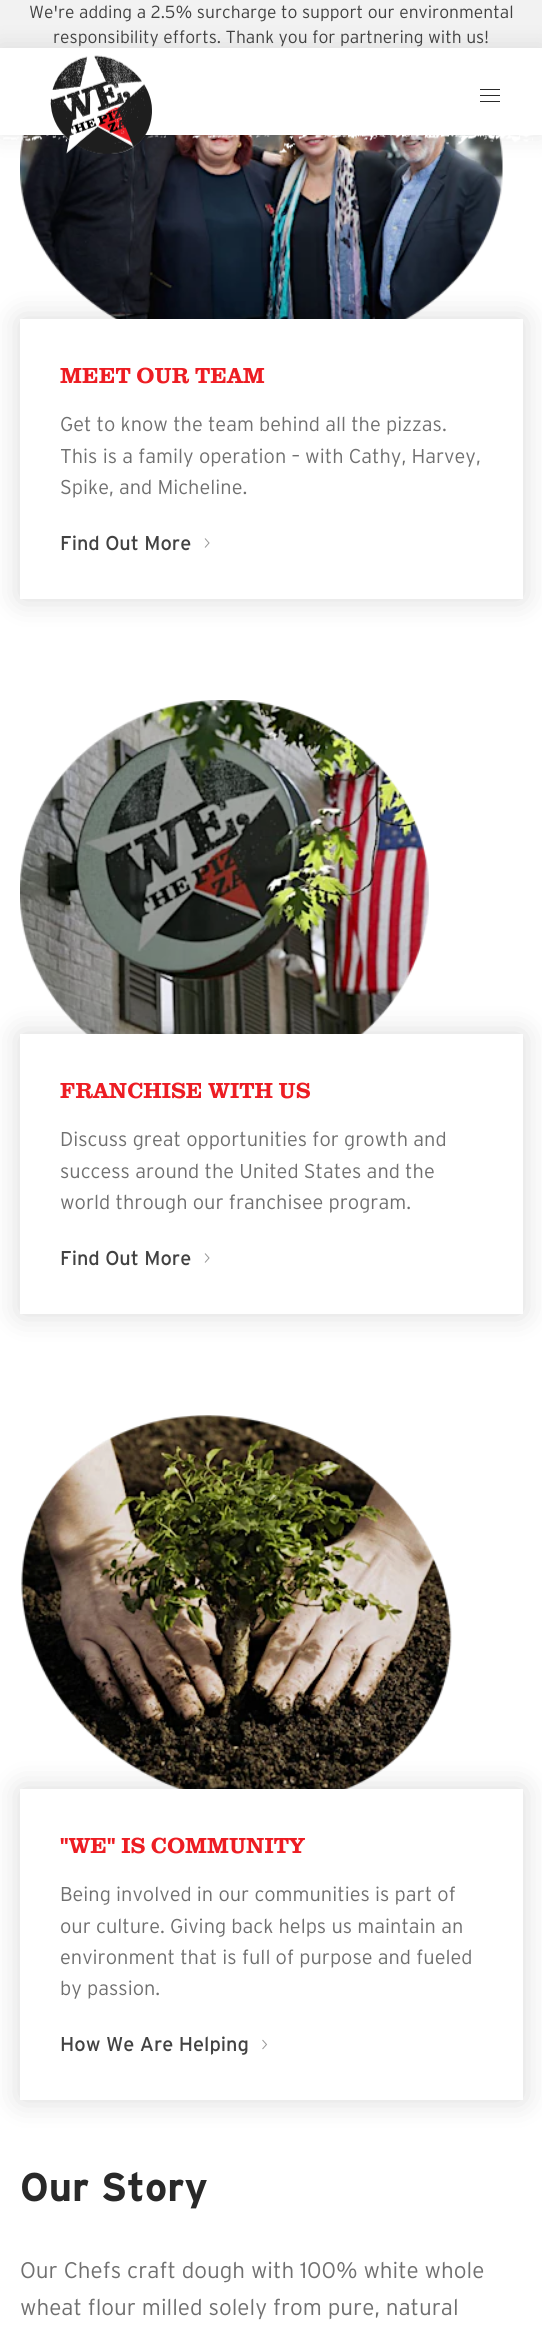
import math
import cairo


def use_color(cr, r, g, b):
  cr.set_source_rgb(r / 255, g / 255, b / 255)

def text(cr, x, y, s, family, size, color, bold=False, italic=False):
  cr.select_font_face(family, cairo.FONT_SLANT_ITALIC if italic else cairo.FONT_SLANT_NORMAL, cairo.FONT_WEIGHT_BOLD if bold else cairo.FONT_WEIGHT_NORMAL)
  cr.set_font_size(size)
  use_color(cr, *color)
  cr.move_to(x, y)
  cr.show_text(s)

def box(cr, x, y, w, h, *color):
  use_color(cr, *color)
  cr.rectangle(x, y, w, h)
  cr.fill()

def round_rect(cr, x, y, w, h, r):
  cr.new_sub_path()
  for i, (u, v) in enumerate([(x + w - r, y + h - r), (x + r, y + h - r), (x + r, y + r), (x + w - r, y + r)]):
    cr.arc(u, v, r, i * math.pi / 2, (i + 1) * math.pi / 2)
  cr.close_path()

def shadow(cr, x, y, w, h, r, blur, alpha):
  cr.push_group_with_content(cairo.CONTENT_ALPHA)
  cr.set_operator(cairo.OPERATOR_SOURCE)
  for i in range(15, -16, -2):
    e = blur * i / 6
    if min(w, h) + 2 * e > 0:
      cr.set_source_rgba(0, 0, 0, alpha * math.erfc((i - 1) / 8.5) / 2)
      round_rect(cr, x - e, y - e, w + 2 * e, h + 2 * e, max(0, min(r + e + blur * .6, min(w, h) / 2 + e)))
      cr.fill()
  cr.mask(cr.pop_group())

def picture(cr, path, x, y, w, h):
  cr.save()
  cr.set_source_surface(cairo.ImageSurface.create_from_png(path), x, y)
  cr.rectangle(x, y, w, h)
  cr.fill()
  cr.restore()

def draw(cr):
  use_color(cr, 255, 255, 255)
  cr.paint()
  box(cr, 0, 0, 542, 48, 242, 242, 242)
  picture(cr, "img_03.png", 20, 135, 483, 184)
  use_color(cr, 0, 0, 0)
  shadow(cr, 0, 48, 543, 87, 0, 12.5, 0.1)
  box(cr, 0, 48, 542, 87, 255, 255, 255)
  picture(cr, "img_02.png", 3, 135, 530, 19)
  picture(cr, "img_01.png", 50, 55, 102, 99)
  box(cr, 480, 89, 20, 1, 41, 41, 41)
  box(cr, 480, 95, 20, 1, 41, 41, 41)
  box(cr, 480, 101, 20, 1, 41, 41, 41)
  use_color(cr, 0, 0, 0)
  shadow(cr, 20, 319, 503, 280, 0, 15.5, 0.15)
  box(cr, 20, 319, 503, 280, 255, 255, 255)
  cr.new_path()
  cr.move_to(205, 538.5)
  cr.line_to(209, 543)
  cr.line_to(205, 547.5)
  use_color(cr, 151, 151, 151)
  cr.set_line_width(1)
  cr.stroke()
  picture(cr, "img_04.png", 20, 700, 409, 334)
  use_color(cr, 0, 0, 0)
  shadow(cr, 20, 1034, 503, 280, 0, 15.5, 0.15)
  box(cr, 20, 1034, 503, 280, 255, 255, 255)
  cr.new_path()
  cr.move_to(205, 1253.5)
  cr.line_to(209, 1258)
  cr.line_to(205, 1262.5)
  use_color(cr, 151, 151, 151)
  cr.stroke()
  picture(cr, "img_05.png", 21, 1415, 431, 374)
  use_color(cr, 0, 0, 0)
  shadow(cr, 20, 1789, 503, 311, 0, 15.5, 0.15)
  box(cr, 20, 1789, 503, 311, 255, 255, 255)
  cr.new_path()
  cr.move_to(262.5, 2040)
  cr.line_to(266.5, 2044.5)
  cr.line_to(262.5, 2049)
  use_color(cr, 151, 151, 151)
  cr.stroke()
  text(cr, 29, 18, "We're adding a 2.5% surcharge to support our environmental", "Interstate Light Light", 17.5, (66, 66, 66))
  text(cr, 53, 43, "responsibility efforts. Thank you for partnering with us!", "Interstate Light Light", 17.5, (66, 66, 66))
  text(cr, 60, 383, "MEET OUR TEAM", "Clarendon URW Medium", 22.5, (237, 29, 35))
  text(cr, 60, 431, "Get to know the team behind all the pizzas.", "Interstate Light Light", 20, (112, 112, 112))
  text(cr, 60, 463, "This is a family operation – with Cathy, Harvey,", "Interstate Light Light", 20, (112, 112, 112))
  text(cr, 60, 494, "Spike, and Micheline.", "Interstate Light Light", 20, (112, 112, 112))
  text(cr, 60, 550, "Find Out More", "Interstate", 20, (66, 66, 66))
  text(cr, 60, 1098, "FRANCHISE WITH US", "Clarendon URW Medium", 22.5, (237, 29, 35))
  text(cr, 60, 1146, "Discuss great opportunities for growth and", "Interstate Light Light", 20, (112, 112, 112))
  text(cr, 60, 1178, "success around the United States and the", "Interstate Light Light", 20, (112, 112, 112))
  text(cr, 60, 1209, "world through our franchisee program.", "Interstate Light Light", 20, (112, 112, 112))
  text(cr, 60, 1265, "Find Out More", "Interstate", 20, (66, 66, 66))
  text(cr, 60, 1853, "\"WE\" IS COMMUNITY", "Clarendon URW Medium", 22.5, (237, 29, 35))
  text(cr, 60, 1901, "Being involved in our communities is part of", "Interstate Light Light", 20, (112, 112, 112))
  text(cr, 60, 1933, "our culture. Giving back helps us maintain an", "Interstate Light Light", 20, (112, 112, 112))
  text(cr, 60, 1964, "environment that is full of purpose and fueled", "Interstate Light Light", 20, (112, 112, 112))
  text(cr, 60, 1995, "by passion.", "Interstate Light Light", 20, (112, 112, 112))
  text(cr, 60, 2051, "How We Are Helping", "Interstate", 20, (66, 66, 66))
  text(cr, 20, 2201, "Our Story", "Interstate", 40, (41, 41, 41), bold=True)
  text(cr, 20, 2278, "Our Chefs craft dough with 100% white whole", "Interstate Light Light", 22.5, (112, 112, 112))
  text(cr, 20, 2315, "wheat flour milled solely from pure, natural", "Interstate Light Light", 22.5, (112, 112, 112))


surface = cairo.ImageSurface(cairo.FORMAT_RGB24, 542, 2347)
cr = cairo.Context(surface)
options = cairo.FontOptions()
options.set_hint_metrics(cairo.HINT_METRICS_OFF)
options.set_hint_style(cairo.HINT_STYLE_NONE)
cr.set_font_options(options)
cr.set_miter_limit(4)
draw(cr)
surface.write_to_png("out.png")
